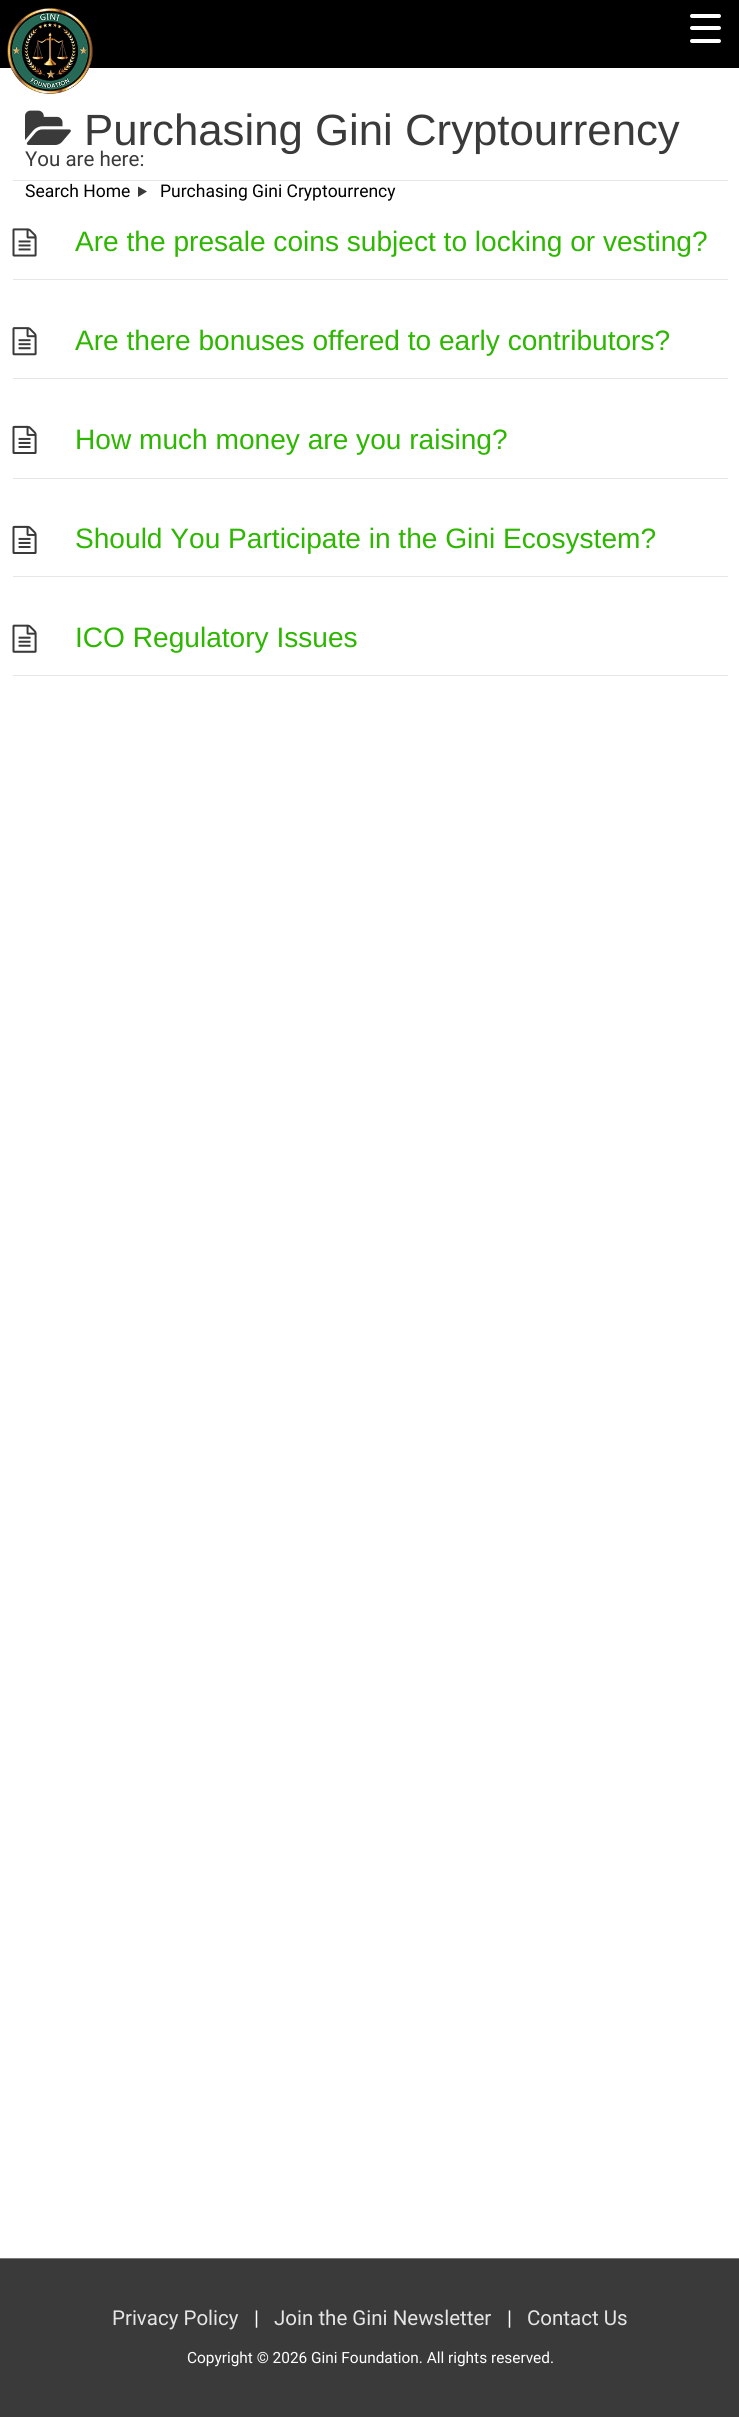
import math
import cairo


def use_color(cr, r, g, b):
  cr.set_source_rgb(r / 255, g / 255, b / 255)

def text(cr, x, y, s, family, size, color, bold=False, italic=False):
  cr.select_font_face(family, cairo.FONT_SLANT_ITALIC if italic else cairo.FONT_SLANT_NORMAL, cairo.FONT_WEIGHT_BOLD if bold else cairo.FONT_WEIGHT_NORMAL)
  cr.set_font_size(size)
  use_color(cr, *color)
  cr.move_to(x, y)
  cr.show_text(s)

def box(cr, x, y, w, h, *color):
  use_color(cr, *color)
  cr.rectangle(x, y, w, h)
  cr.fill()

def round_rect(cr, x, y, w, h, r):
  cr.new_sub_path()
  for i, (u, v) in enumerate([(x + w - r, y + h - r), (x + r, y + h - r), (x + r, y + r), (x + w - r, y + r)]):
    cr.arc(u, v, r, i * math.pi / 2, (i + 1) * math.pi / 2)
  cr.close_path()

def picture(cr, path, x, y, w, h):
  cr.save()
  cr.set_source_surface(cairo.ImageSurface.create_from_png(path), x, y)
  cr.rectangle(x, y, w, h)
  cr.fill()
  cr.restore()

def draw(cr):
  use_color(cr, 255, 255, 255)
  cr.paint()
  box(cr, 0, 0, 739, 68, 0, 0, 0)
  use_color(cr, 255, 255, 255)
  round_rect(cr, 690, 26, 31, 4, 2)
  cr.fill()
  round_rect(cr, 690, 14, 31, 4, 2)
  cr.fill()
  round_rect(cr, 690, 39, 31, 4, 2)
  cr.fill()
  picture(cr, "img_01.png", 7, 8, 86, 86)
  box(cr, 13, 180, 715, 1, 230, 230, 230)
  picture(cr, "img_02.png", 25, 110, 46, 35)
  use_color(cr, 58, 58, 58)
  cr.new_path()
  cr.move_to(138, 186.5)
  cr.line_to(147, 191.5)
  cr.line_to(138, 197)
  cr.close_path()
  cr.fill()
  box(cr, 13, 279, 715, 1, 230, 230, 230)
  picture(cr, "img_03.png", 12, 228, 25, 29)
  box(cr, 13, 378, 715, 1, 230, 230, 230)
  picture(cr, "img_04.png", 12, 327, 25, 29)
  box(cr, 13, 478, 715, 1, 230, 230, 230)
  picture(cr, "img_05.png", 12, 425, 25, 29)
  box(cr, 13, 576, 715, 1, 230, 230, 230)
  picture(cr, "img_05.png", 12, 525, 25, 29)
  box(cr, 13, 675, 715, 1, 230, 230, 230)
  picture(cr, "img_06.png", 12, 624, 25, 29)
  box(cr, 0, 2258, 739, 1, 122, 122, 122)
  box(cr, 0, 2259, 739, 158, 58, 58, 58)
  text(cr, 84, 145, "Purchasing Gini Cryptourrency", "Liberation Sans", 43.75, (58, 58, 58))
  text(cr, 25, 166, "You are here:", "Roboto", 20.5, (58, 58, 58))
  text(cr, 25, 197, "Search Home", "Roboto", 17.5, (0, 0, 0))
  text(cr, 160, 197, "Purchasing Gini Cryptourrency", "Roboto", 17.5, (0, 0, 0))
  text(cr, 75, 251, "Are the presale coins subject to locking or vesting?", "Liberation Sans", 28.1, (45, 183, 0))
  text(cr, 75, 350, "Are there bonuses offered to early contributors?", "Liberation Sans", 28.1, (45, 183, 0))
  text(cr, 75, 449, "How much money are you raising?", "Liberation Sans", 28.1, (45, 183, 0))
  text(cr, 75, 548, "Should You Participate in the Gini Ecosystem?", "Liberation Sans", 28.1, (45, 183, 0))
  text(cr, 75, 647, "ICO Regulatory Issues", "Liberation Sans", 28.1, (45, 183, 0))
  text(cr, 112, 2325, "Privacy Policy", "Roboto", 20.5, (229, 229, 229))
  text(cr, 254, 2325, "|", "Roboto", 20.5, (255, 255, 255))
  text(cr, 274, 2325, "Join the Gini Newsletter", "Roboto", 20.5, (229, 229, 229))
  text(cr, 507, 2325, "|", "Roboto", 20.5, (255, 255, 255))
  text(cr, 527, 2325, "Contact Us", "Roboto", 20.5, (229, 229, 229))
  text(cr, 187, 2363, "Copyright © 2026 Gini Foundation. All rights reserved.", "Roboto", 15.4, (255, 255, 255))


surface = cairo.ImageSurface(cairo.FORMAT_RGB24, 739, 2417)
cr = cairo.Context(surface)
options = cairo.FontOptions()
options.set_hint_metrics(cairo.HINT_METRICS_OFF)
options.set_hint_style(cairo.HINT_STYLE_NONE)
cr.set_font_options(options)
cr.set_miter_limit(4)
draw(cr)
surface.write_to_png("out.png")
